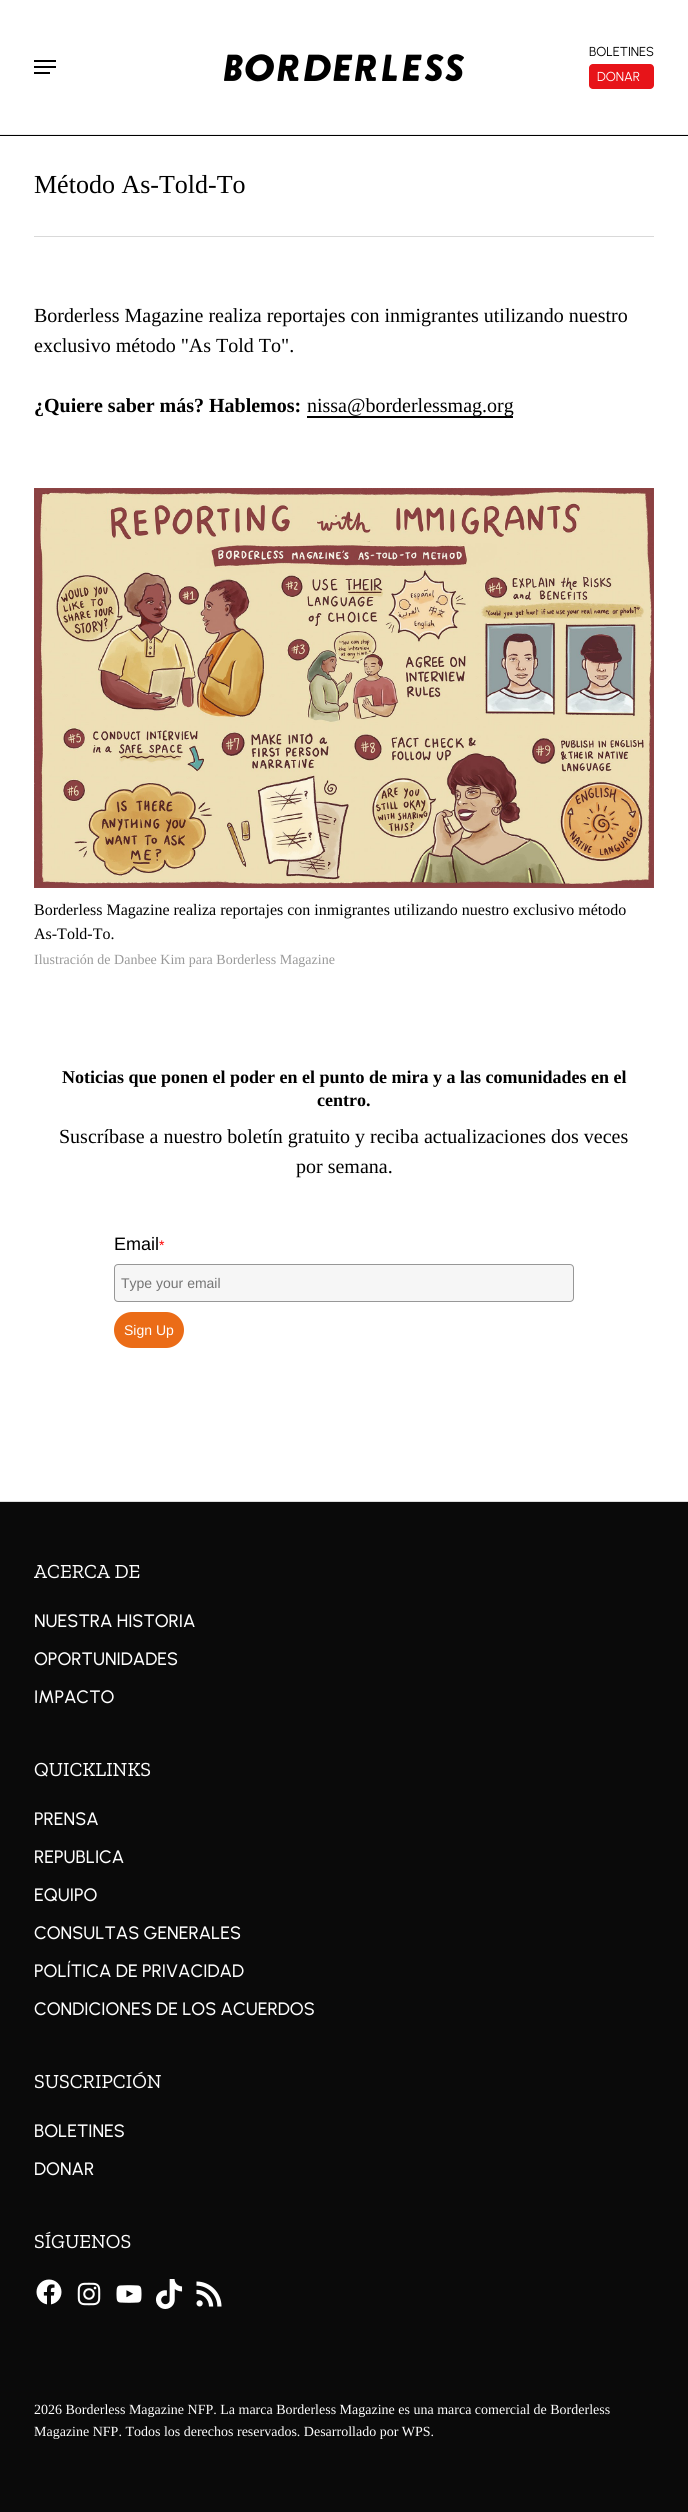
import math
import cairo


def use_color(cr, r, g, b):
  cr.set_source_rgb(r / 255, g / 255, b / 255)

def text(cr, x, y, s, family, size, color, bold=False, italic=False):
  cr.select_font_face(family, cairo.FONT_SLANT_ITALIC if italic else cairo.FONT_SLANT_NORMAL, cairo.FONT_WEIGHT_BOLD if bold else cairo.FONT_WEIGHT_NORMAL)
  cr.set_font_size(size)
  use_color(cr, *color)
  cr.move_to(x, y)
  cr.show_text(s)

def box(cr, x, y, w, h, *color):
  use_color(cr, *color)
  cr.rectangle(x, y, w, h)
  cr.fill()

def round_rect(cr, x, y, w, h, r):
  cr.new_sub_path()
  for i, (u, v) in enumerate([(x + w - r, y + h - r), (x + r, y + h - r), (x + r, y + r), (x + w - r, y + r)]):
    cr.arc(u, v, r, i * math.pi / 2, (i + 1) * math.pi / 2)
  cr.close_path()

def picture(cr, path, x, y, w, h):
  cr.save()
  cr.set_source_surface(cairo.ImageSurface.create_from_png(path), x, y)
  cr.rectangle(x, y, w, h)
  cr.fill()
  cr.restore()

def draw(cr):
  use_color(cr, 255, 255, 255)
  cr.paint()
  box(cr, 0, 135, 688, 1, 0, 0, 0)
  box(cr, 0, 134, 688, 1, 238, 238, 238)
  picture(cr, "img_01.png", 224, 54, 240, 28)
  box(cr, 34, 60, 22, 2, 0, 0, 0)
  box(cr, 34, 72, 16, 2, 0, 0, 0)
  box(cr, 34, 66, 22, 2, 0, 0, 0)
  use_color(cr, 231, 20, 25)
  round_rect(cr, 589, 64, 65, 25, 4)
  cr.fill()
  box(cr, 34, 236, 620, 1, 217, 217, 217)
  box(cr, 307, 416, 206, 2, 0, 0, 0)
  picture(cr, "img_02.png", 34, 488, 620, 400)
  use_color(cr, 246, 246, 246)
  round_rect(cr, 114.5, 1264.5, 459, 37, 3.5)
  cr.fill_preserve()
  use_color(cr, 151, 151, 151)
  cr.set_line_width(1)
  cr.stroke()
  use_color(cr, 235, 108, 23)
  round_rect(cr, 114, 1312, 70, 36, 18)
  cr.fill()
  box(cr, 0, 1502, 688, 1010, 10, 10, 10)
  box(cr, 0, 1501, 688, 1, 221, 221, 221)
  picture(cr, "img_03.png", 36, 2279, 26, 26)
  picture(cr, "img_04.png", 77, 2282, 24, 24)
  picture(cr, "img_05.png", 116, 2285, 26, 18)
  picture(cr, "img_06.png", 156, 2279, 27, 30)
  picture(cr, "img_07.png", 196, 2281, 26, 26)
  text(cr, 589, 56, "BOLETINES", "Urbanist", 13, (0, 0, 0))
  text(cr, 597, 81, "DONAR", "Urbanist", 13, (255, 255, 255))
  text(cr, 34, 193, "Método As-Told-To", "Liberation Serif", 26, (0, 0, 0))
  text(cr, 34, 322, "Borderless Magazine realiza reportajes con inmigrantes utilizando nuestro", "Liberation Serif", 20, (0, 0, 0))
  text(cr, 34, 352, "exclusivo método \"As Told To\".", "Liberation Serif", 20, (0, 0, 0))
  text(cr, 34, 412, "¿Quiere saber más? Hablemos:", "Liberation Serif", 20, (0, 0, 0), bold=True)
  text(cr, 307, 412, "nissa@borderlessmag.org", "Liberation Serif", 20, (0, 0, 0))
  text(cr, 34, 915, "Borderless Magazine realiza reportajes con inmigrantes utilizando nuestro exclusivo método", "Liberation Serif", 16, (0, 0, 0))
  text(cr, 34, 939, "As-Told-To.", "Liberation Serif", 16, (0, 0, 0))
  text(cr, 34, 964, "Ilustración de Danbee Kim para Borderless Magazine", "Liberation Serif", 14, (153, 153, 153))
  text(cr, 62, 1083, "Noticias que ponen el poder en el punto de mira y a las comunidades en el", "Liberation Serif", 18, (0, 0, 0), bold=True)
  text(cr, 317, 1106, "centro.", "Liberation Serif", 18, (0, 0, 0), bold=True)
  text(cr, 59, 1143, "Suscríbase a nuestro boletín gratuito y reciba actualizaciones dos veces", "Liberation Serif", 20, (0, 0, 0))
  text(cr, 296, 1173, "por semana.", "Liberation Serif", 20, (0, 0, 0))
  text(cr, 114, 1250, "Email", "Liberation Sans", 18, (0, 0, 0))
  text(cr, 159, 1250, "*", "Liberation Sans", 14, (255, 0, 0))
  text(cr, 121, 1288, "Type your email", "Liberation Sans", 14, (117, 117, 117))
  text(cr, 124, 1335, "Sign Up", "Liberation Sans", 14, (255, 255, 255))
  text(cr, 34, 1578, "ACERCA DE", "Zilla Slab", 20, (255, 255, 255))
  text(cr, 34, 1627, "NUESTRA HISTORIA", "Urbanist Medium", 18, (255, 255, 255))
  text(cr, 34, 1665, "OPORTUNIDADES", "Urbanist Medium", 18, (255, 255, 255))
  text(cr, 34, 1703, "IMPACTO", "Urbanist Medium", 18, (255, 255, 255))
  text(cr, 34, 1776, "QUICKLINKS", "Zilla Slab", 20, (255, 255, 255))
  text(cr, 34, 1825, "PRENSA", "Urbanist Medium", 18, (255, 255, 255))
  text(cr, 34, 1863, "REPUBLICA", "Urbanist Medium", 18, (255, 255, 255))
  text(cr, 34, 1901, "EQUIPO", "Urbanist Medium", 18, (255, 255, 255))
  text(cr, 34, 1939, "CONSULTAS GENERALES", "Urbanist Medium", 18, (255, 255, 255))
  text(cr, 34, 1977, "POLÍTICA DE PRIVACIDAD", "Urbanist Medium", 18, (255, 255, 255))
  text(cr, 34, 2015, "CONDICIONES DE LOS ACUERDOS", "Urbanist Medium", 18, (255, 255, 255))
  text(cr, 34, 2088, "SUSCRIPCIÓN", "Zilla Slab", 20, (255, 255, 255))
  text(cr, 34, 2137, "BOLETINES", "Urbanist Medium", 18, (255, 255, 255))
  text(cr, 34, 2175, "DONAR", "Urbanist Medium", 18, (255, 255, 255))
  text(cr, 34, 2248, "SÍGUENOS", "Zilla Slab", 20, (255, 255, 255))
  text(cr, 34, 2414, "2026 Borderless Magazine NFP. La marca Borderless Magazine es una marca comercial de Borderless", "Liberation Serif", 14, (255, 255, 255))
  text(cr, 34, 2436, "Magazine NFP. Todos los derechos reservados. Desarrollado por WPS.", "Liberation Serif", 14, (255, 255, 255))


surface = cairo.ImageSurface(cairo.FORMAT_RGB24, 688, 2512)
cr = cairo.Context(surface)
options = cairo.FontOptions()
options.set_hint_metrics(cairo.HINT_METRICS_OFF)
options.set_hint_style(cairo.HINT_STYLE_NONE)
cr.set_font_options(options)
cr.set_miter_limit(4)
draw(cr)
surface.write_to_png("out.png")
